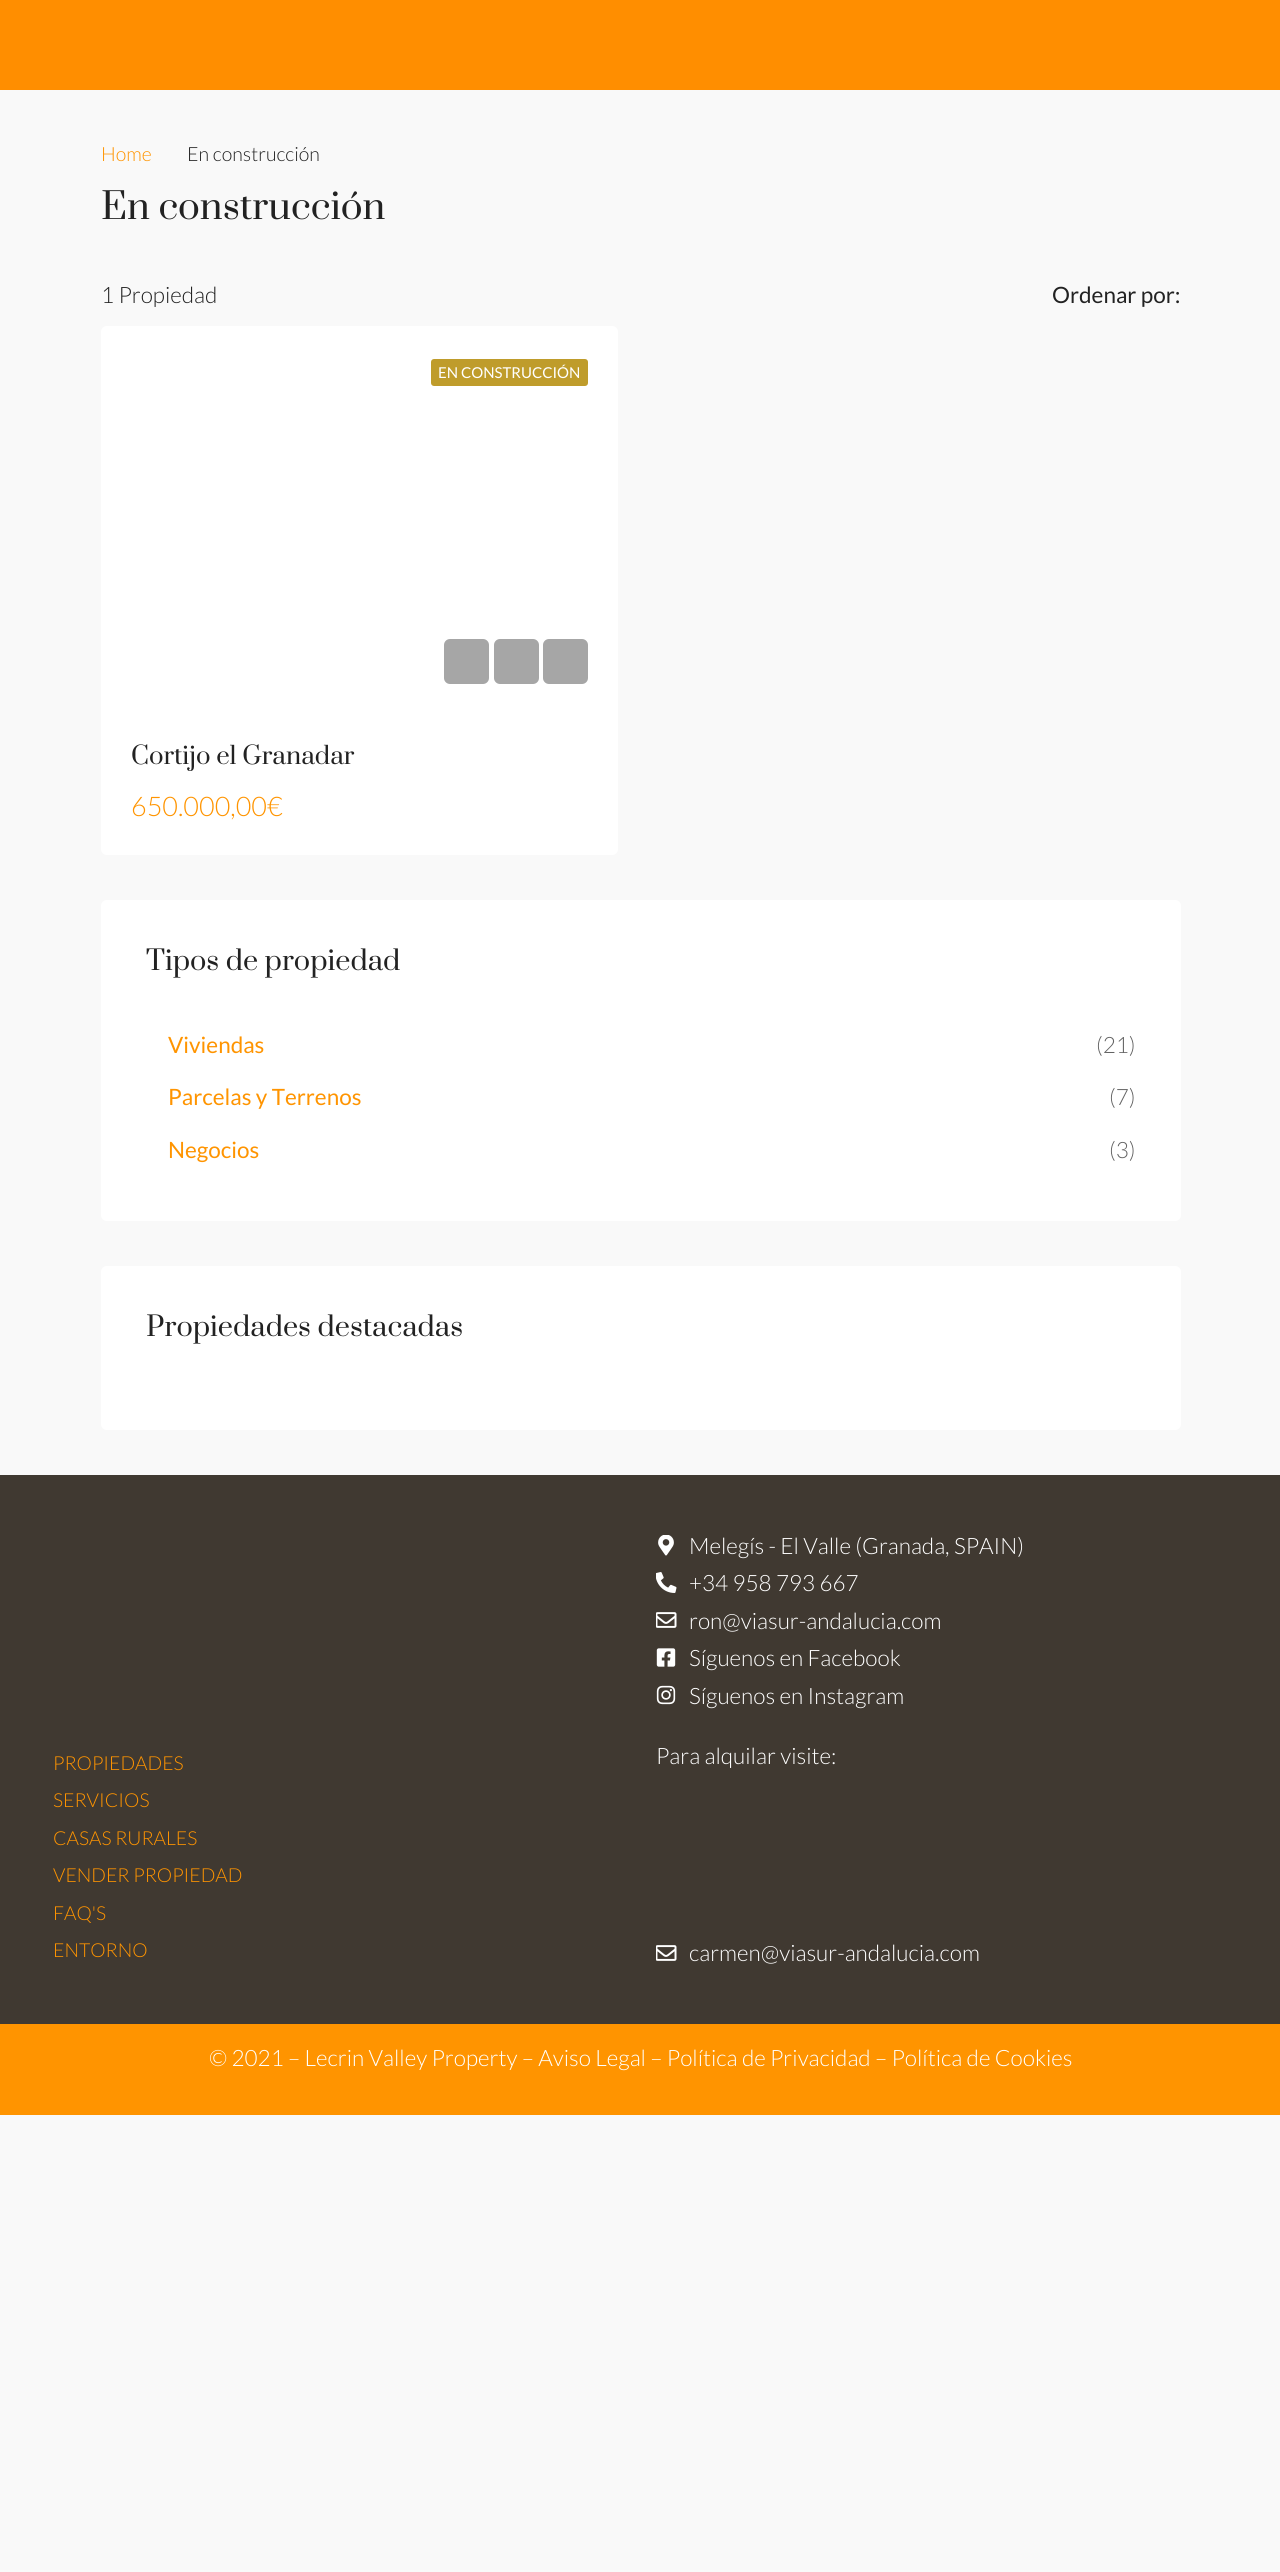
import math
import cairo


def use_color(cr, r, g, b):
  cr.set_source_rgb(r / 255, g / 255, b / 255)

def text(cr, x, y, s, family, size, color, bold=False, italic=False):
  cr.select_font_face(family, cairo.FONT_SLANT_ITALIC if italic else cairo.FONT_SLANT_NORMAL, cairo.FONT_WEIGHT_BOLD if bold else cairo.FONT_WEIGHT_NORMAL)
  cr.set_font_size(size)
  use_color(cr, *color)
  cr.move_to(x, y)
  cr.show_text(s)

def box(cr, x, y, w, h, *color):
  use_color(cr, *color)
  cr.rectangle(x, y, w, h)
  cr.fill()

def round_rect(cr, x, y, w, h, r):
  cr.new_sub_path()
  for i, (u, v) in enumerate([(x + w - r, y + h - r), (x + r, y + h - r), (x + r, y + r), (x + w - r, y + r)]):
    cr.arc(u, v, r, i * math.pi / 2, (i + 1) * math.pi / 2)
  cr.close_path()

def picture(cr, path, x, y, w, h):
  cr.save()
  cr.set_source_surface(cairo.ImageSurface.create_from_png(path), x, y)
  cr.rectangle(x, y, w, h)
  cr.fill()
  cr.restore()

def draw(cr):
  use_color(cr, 249, 249, 249)
  cr.paint()
  box(cr, 0, 0, 1280, 90, 255, 142, 0)
  use_color(cr, 255, 255, 255)
  round_rect(cr, 101, 326, 517, 529, 6)
  cr.fill()
  use_color(cr, 191, 156, 43)
  round_rect(cr, 431, 359, 157, 27, 3)
  cr.fill()
  use_color(cr, 166, 166, 166)
  round_rect(cr, 444, 639, 45, 45, 6)
  cr.fill()
  round_rect(cr, 494, 639, 45, 45, 6)
  cr.fill()
  round_rect(cr, 543, 639, 45, 45, 6)
  cr.fill()
  use_color(cr, 255, 255, 255)
  round_rect(cr, 101, 900, 1080, 321, 6)
  cr.fill()
  round_rect(cr, 101, 1266, 1080, 164, 6)
  cr.fill()
  box(cr, 0, 1475, 1280, 549, 64, 57, 49)
  picture(cr, "img_01.png", 658, 1535, 16, 21)
  picture(cr, "img_02.png", 656, 1572, 21, 21)
  picture(cr, "img_03.png", 656, 1612, 21, 16)
  picture(cr, "img_04.png", 656, 1648, 20, 19)
  picture(cr, "img_05.png", 656, 1685, 20, 20)
  picture(cr, "img_03.png", 656, 1945, 21, 16)
  box(cr, 0, 2024, 1280, 91, 255, 148, 0)
  text(cr, 101, 161, "Home", "Lato Light", 19.5, (255, 148, 0))
  text(cr, 187, 161, "En construcción", "Lato Light", 19.5, (34, 34, 34))
  text(cr, 101, 219, "En construcción", "Prata", 36, (34, 34, 34))
  text(cr, 101, 303, "1 Propiedad", "Lato Light", 22.5, (34, 34, 34))
  text(cr, 1052, 303, "Ordenar por:", "Lato", 22.5, (34, 34, 34))
  text(cr, 438, 378, "EN CONSTRUCCIÓN", "Lato", 15, (255, 255, 255))
  text(cr, 131, 764, "Cortijo el Granadar", "Prata", 24, (34, 34, 34))
  text(cr, 131, 816, "650.000,00€", "Lato Light", 27, (255, 148, 0))
  text(cr, 146, 970, "Tipos de propiedad", "Prata", 27, (34, 34, 34))
  text(cr, 168, 1053, "Viviendas", "Lato", 22.5, (255, 148, 0))
  text(cr, 1096, 1053, "(21)", "Lato Light", 22.5, (99, 99, 99))
  text(cr, 168, 1105, "Parcelas y Terrenos", "Lato", 22.5, (255, 148, 0))
  text(cr, 1109, 1105, "(7)", "Lato Light", 22.5, (99, 99, 99))
  text(cr, 168, 1158, "Negocios", "Lato", 22.5, (255, 148, 0))
  text(cr, 1109, 1158, "(3)", "Lato Light", 22.5, (99, 99, 99))
  text(cr, 146, 1336, "Propiedades destacadas", "Prata", 27, (34, 34, 34))
  text(cr, 689, 1554, "Melegís - El Valle (Granada, SPAIN)", "Lato Light", 22.5, (255, 255, 255))
  text(cr, 689, 1591, "+34 958 793 667", "Lato Light", 22.5, (255, 255, 255))
  text(cr, 689, 1629, "ron@viasur-andalucia.com", "Lato Light", 22.5, (255, 255, 255))
  text(cr, 689, 1666, "Síguenos en Facebook", "Lato Light", 22.5, (255, 255, 255))
  text(cr, 689, 1704, "Síguenos en Instagram", "Lato Light", 22.5, (255, 255, 255))
  text(cr, 53, 1770, "PROPIEDADES", "Lato Light", 19.25, (255, 148, 0))
  text(cr, 53, 1807, "SERVICIOS", "Lato Light", 19.25, (255, 148, 0))
  text(cr, 53, 1845, "CASAS RURALES", "Lato Light", 19.25, (255, 148, 0))
  text(cr, 53, 1882, "VENDER PROPIEDAD", "Lato Light", 19.25, (255, 148, 0))
  text(cr, 53, 1920, "FAQ'S", "Lato Light", 19.25, (255, 148, 0))
  text(cr, 53, 1957, "ENTORNO", "Lato Light", 19.25, (255, 148, 0))
  text(cr, 656, 1764, "Para alquilar visite:", "Lato Light", 22.5, (255, 255, 255))
  text(cr, 689, 1961, "carmen@viasur-andalucia.com", "Lato Light", 22.5, (255, 255, 255))
  text(cr, 209, 2066, "© 2021 – Lecrin Valley Property – Aviso Legal – Política de Privacidad – Política de Cookies", "Lato Light", 22.5, (255, 255, 255))


surface = cairo.ImageSurface(cairo.FORMAT_RGB24, 1280, 2572)
cr = cairo.Context(surface)
options = cairo.FontOptions()
options.set_hint_metrics(cairo.HINT_METRICS_OFF)
options.set_hint_style(cairo.HINT_STYLE_NONE)
cr.set_font_options(options)
cr.set_miter_limit(4)
draw(cr)
surface.write_to_png("out.png")
